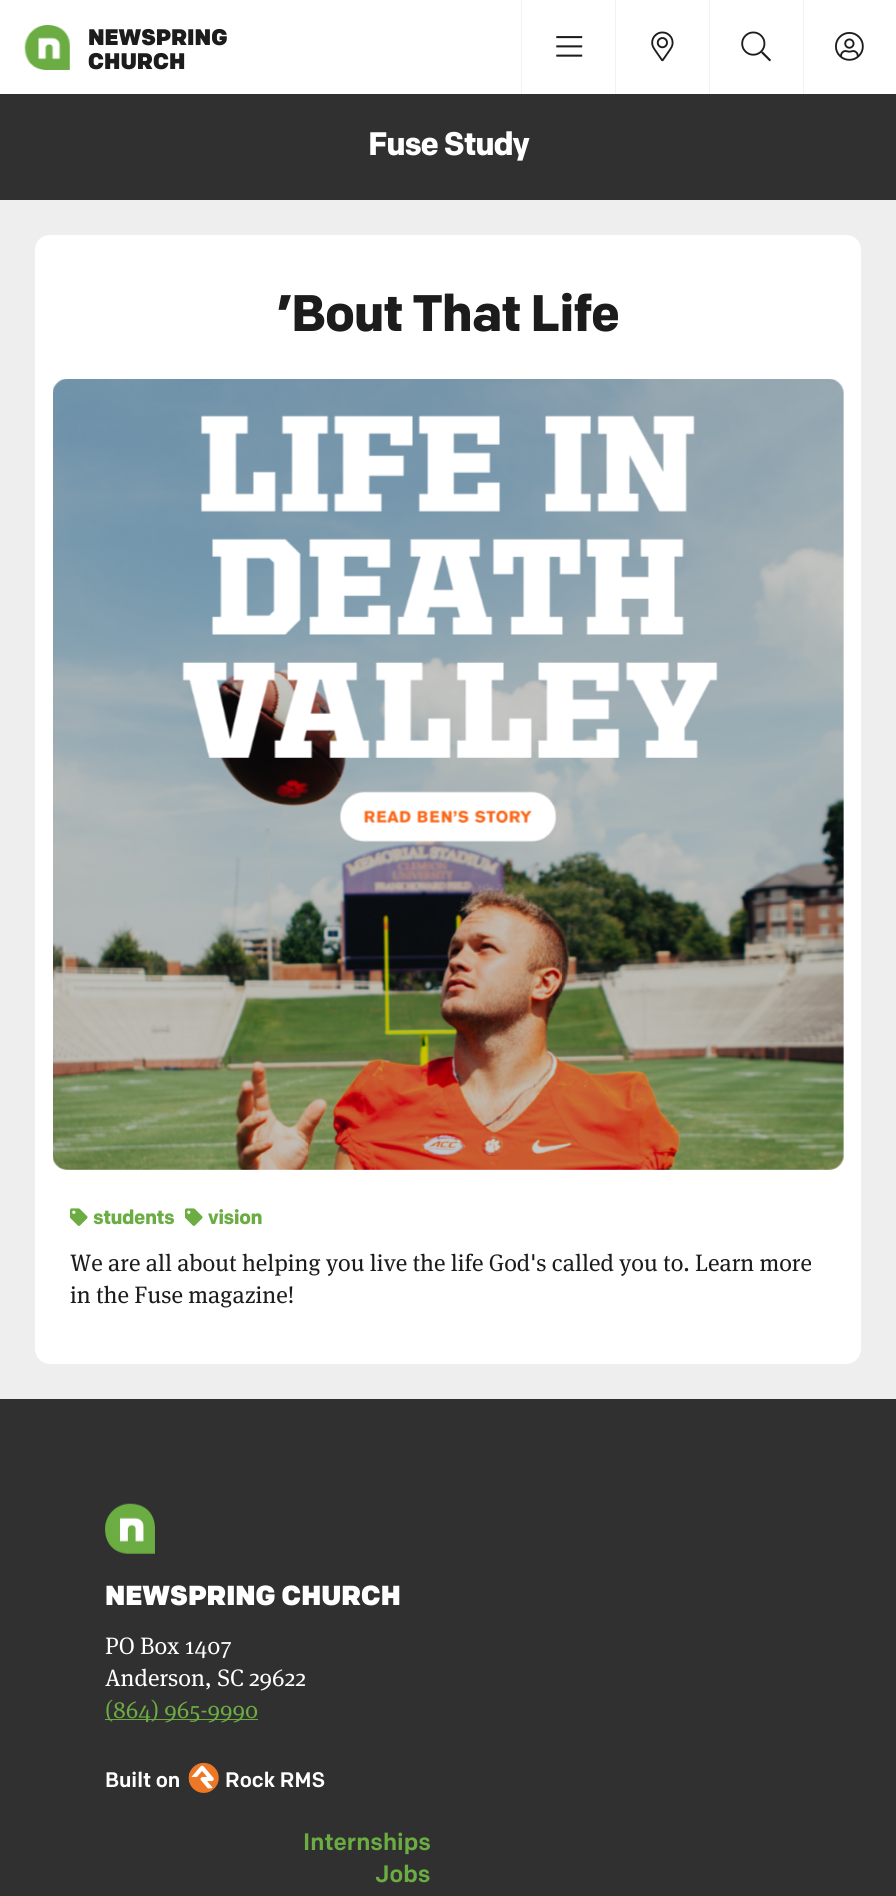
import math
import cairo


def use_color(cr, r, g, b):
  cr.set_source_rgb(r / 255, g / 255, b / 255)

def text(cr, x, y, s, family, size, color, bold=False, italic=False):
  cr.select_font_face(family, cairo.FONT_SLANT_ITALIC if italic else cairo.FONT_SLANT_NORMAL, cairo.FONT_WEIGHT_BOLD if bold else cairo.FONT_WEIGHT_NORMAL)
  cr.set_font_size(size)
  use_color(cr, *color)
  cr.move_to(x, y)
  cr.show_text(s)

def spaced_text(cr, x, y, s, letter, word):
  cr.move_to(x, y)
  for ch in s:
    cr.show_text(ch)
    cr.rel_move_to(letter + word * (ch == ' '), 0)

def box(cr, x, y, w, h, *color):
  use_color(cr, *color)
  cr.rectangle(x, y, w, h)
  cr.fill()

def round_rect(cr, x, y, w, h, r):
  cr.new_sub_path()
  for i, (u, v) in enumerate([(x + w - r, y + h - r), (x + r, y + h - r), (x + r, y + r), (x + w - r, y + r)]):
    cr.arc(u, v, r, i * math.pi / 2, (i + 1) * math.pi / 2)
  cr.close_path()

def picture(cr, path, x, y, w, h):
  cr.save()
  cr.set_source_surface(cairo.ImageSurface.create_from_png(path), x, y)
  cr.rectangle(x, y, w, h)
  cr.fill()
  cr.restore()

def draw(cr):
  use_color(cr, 48, 48, 48)
  cr.paint()
  box(cr, 0, 0, 896, 94, 255, 255, 255)
  picture(cr, "img_01.png", 24, 25, 46, 45)
  box(cr, 521, 0, 1, 94, 242, 242, 242)
  picture(cr, "img_02.png", 556, 36, 27, 21)
  box(cr, 615, 0, 1, 94, 242, 242, 242)
  picture(cr, "img_03.png", 651, 31, 23, 31)
  box(cr, 709, 0, 1, 94, 242, 242, 242)
  picture(cr, "img_04.png", 741, 31, 30, 31)
  box(cr, 803, 0, 1, 94, 242, 242, 242)
  picture(cr, "img_05.png", 835, 32, 29, 29)
  box(cr, 0, 200, 896, 1199, 238, 238, 238)
  use_color(cr, 255, 255, 255)
  round_rect(cr, 35, 235, 826, 1129, 15)
  cr.fill()
  picture(cr, "img_06.png", 53, 379, 791, 791)
  picture(cr, "img_07.png", 70, 1208, 18, 18)
  picture(cr, "img_07.png", 185, 1208, 18, 18)
  picture(cr, "img_08.png", 105, 1503, 50, 51)
  box(cr, 105, 1719, 153, 1, 107, 172, 67)
  use_color(cr, 255, 255, 255)
  cr.new_path()
  cr.move_to(193, 1768.5)
  cr.curve_to(206, 1756, 225, 1775, 212.5, 1788)
  cr.curve_to(200, 1800.5, 180.5, 1781.5, 193, 1768.5)
  cr.close_path()
  cr.fill()
  picture(cr, "img_09.png", 188, 1762, 31, 31)
  text(cr, 88, 45, "NEWSPRING", "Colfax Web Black", 22.5, (28, 28, 28))
  text(cr, 88, 69, "CHURCH", "Colfax Web Black", 22.5, (28, 28, 28))
  cr.select_font_face("Colfax Web", cairo.FONT_SLANT_NORMAL, cairo.FONT_WEIGHT_BOLD)
  cr.set_font_size(32.5)
  use_color(cr, 255, 255, 255)
  spaced_text(cr, 368, 155, "Fuse Study", -1.25, 0)
  cr.set_font_size(51.25)
  use_color(cr, 28, 28, 28)
  spaced_text(cr, 277, 331, "’Bout That Life", -1.25, 0)
  cr.set_font_size(20)
  use_color(cr, 107, 172, 67)
  spaced_text(cr, 93, 1224, "students", -0.5, 0)
  spaced_text(cr, 208, 1224, "vision", -0.5, 0)
  text(cr, 70, 1271, "We are all about helping you live the life God's called you to. Learn more", "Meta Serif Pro", 23.75, (28, 28, 28))
  text(cr, 70, 1303, "in the Fuse magazine!", "Meta Serif Pro", 23.75, (28, 28, 28))
  text(cr, 105, 1605, "NEWSPRING CHURCH", "Colfax Web Black", 27.5, (255, 255, 255))
  text(cr, 105, 1654, "PO Box 1407", "Meta Serif Pro", 23.75, (255, 255, 255))
  text(cr, 105, 1686, "Anderson, SC 29622", "Meta Serif Pro", 23.75, (255, 255, 255))
  text(cr, 105, 1718, "(864) 965-9990", "Meta Serif Pro", 23.75, (107, 172, 67))
  text(cr, 105, 1787, "Built on", "Colfax Web Medium", 21, (255, 255, 255))
  text(cr, 225, 1787, "Rock RMS", "Colfax Web Medium", 21, (255, 255, 255))
  text(cr, 303, 1850, "Internships", "Colfax Web Medium", 23.75, (107, 172, 67))
  text(cr, 375, 1882, "Jobs", "Colfax Web Medium", 23.75, (107, 172, 67))


surface = cairo.ImageSurface(cairo.FORMAT_RGB24, 896, 1896)
cr = cairo.Context(surface)
options = cairo.FontOptions()
options.set_hint_metrics(cairo.HINT_METRICS_OFF)
options.set_hint_style(cairo.HINT_STYLE_NONE)
cr.set_font_options(options)
cr.set_miter_limit(4)
draw(cr)
surface.write_to_png("out.png")
